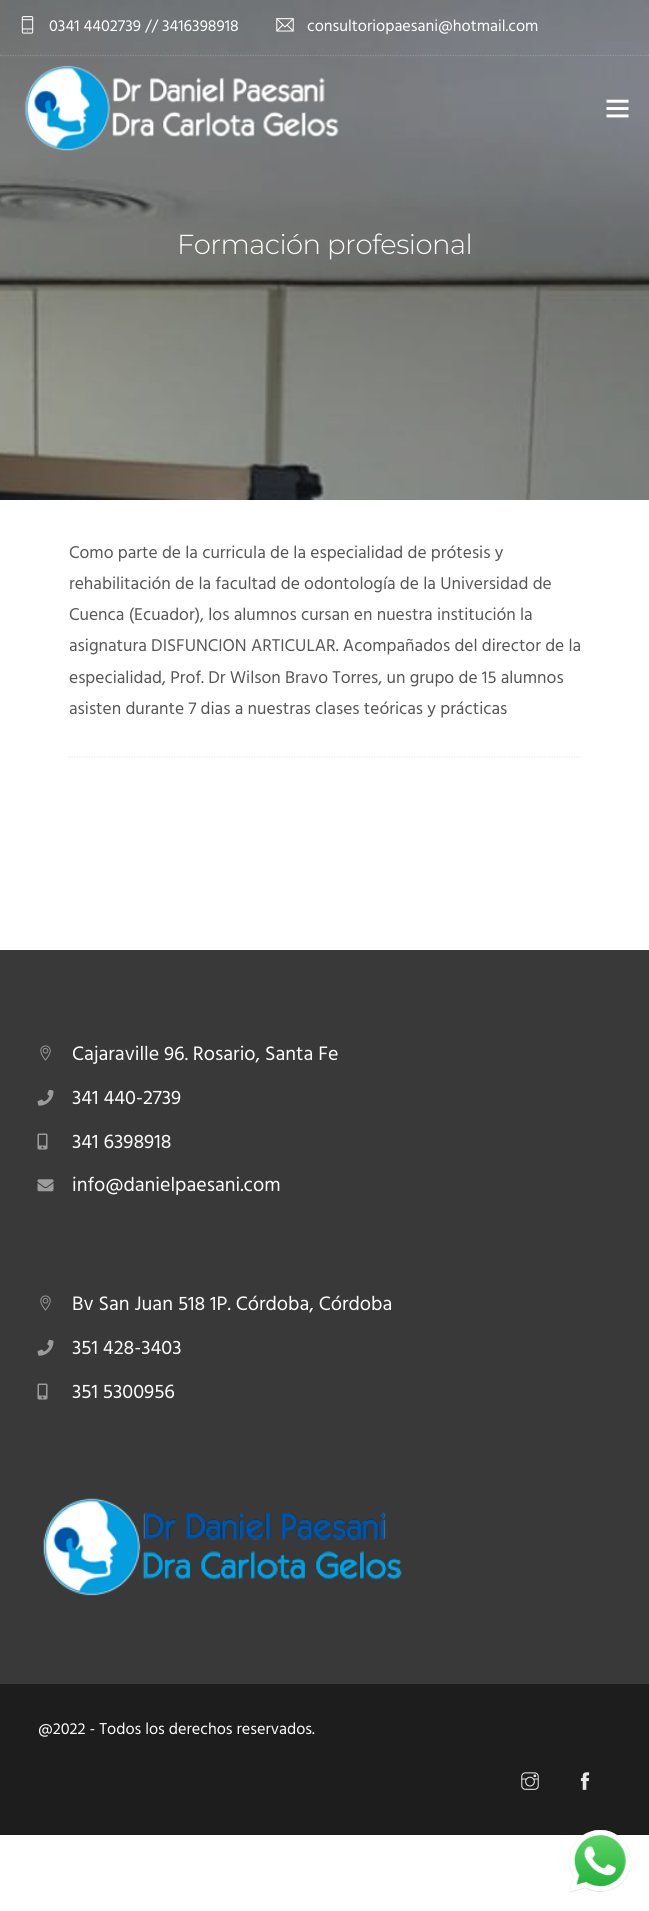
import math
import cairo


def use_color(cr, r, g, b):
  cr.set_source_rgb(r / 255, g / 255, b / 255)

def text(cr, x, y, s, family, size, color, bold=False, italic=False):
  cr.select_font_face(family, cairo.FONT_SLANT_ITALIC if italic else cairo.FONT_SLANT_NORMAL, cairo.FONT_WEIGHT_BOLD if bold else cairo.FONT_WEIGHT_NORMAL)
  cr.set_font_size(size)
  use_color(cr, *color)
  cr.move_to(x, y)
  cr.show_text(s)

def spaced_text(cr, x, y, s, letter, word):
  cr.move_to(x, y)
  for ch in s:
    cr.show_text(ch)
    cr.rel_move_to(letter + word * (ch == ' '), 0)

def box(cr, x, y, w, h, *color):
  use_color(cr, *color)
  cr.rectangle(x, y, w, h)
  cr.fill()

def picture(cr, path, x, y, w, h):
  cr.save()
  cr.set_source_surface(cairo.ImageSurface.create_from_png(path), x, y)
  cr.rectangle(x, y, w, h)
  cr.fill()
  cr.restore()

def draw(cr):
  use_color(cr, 255, 255, 255)
  cr.paint()
  picture(cr, "img_05.png", 0, 0, 649, 500)
  cr.new_path()
  cr.move_to(0, 55.5)
  cr.line_to(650, 55.5)
  cr.set_source_rgba(1, 1, 1, 0.2)
  cr.set_line_width(1.2)
  cr.set_dash([1.25, 1.25])
  cr.stroke()
  picture(cr, "img_01.png", 21, 16, 13, 18)
  picture(cr, "img_02.png", 276, 18, 18, 14)
  picture(cr, "img_03.png", 25, 65, 314, 86)
  picture(cr, "img_04.png", 606, 99, 23, 19)
  cr.new_path()
  cr.move_to(69, 757)
  cr.line_to(581, 757)
  use_color(cr, 232, 232, 232)
  cr.stroke()
  box(cr, 0, 950, 649, 734, 57, 57, 57)
  picture(cr, "img_06.png", 40, 1045, 11, 16)
  picture(cr, "img_07.png", 37, 1089, 17, 17)
  picture(cr, "img_08.png", 37, 1133, 11, 17)
  picture(cr, "img_09.png", 37, 1179, 17, 13)
  picture(cr, "img_06.png", 40, 1295, 11, 16)
  picture(cr, "img_07.png", 37, 1339, 17, 17)
  picture(cr, "img_08.png", 37, 1383, 11, 17)
  picture(cr, "img_10.png", 43, 1498, 359, 98)
  box(cr, 0, 1684, 649, 151, 29, 29, 29)
  picture(cr, "img_11.png", 521, 1772, 18, 18)
  picture(cr, "img_12.png", 580, 1772, 10, 18)
  picture(cr, "img_13.png", 569, 1830, 63, 62)
  text(cr, 49, 31, "0341 4402739 // 3416398918", "Hind", 16.25, (255, 255, 255))
  text(cr, 307, 31, "consultoriopaesani@hotmail.com", "Hind", 16.25, (255, 255, 255))
  cr.select_font_face("Montserrat Light")
  cr.set_font_size(27.5)
  spaced_text(cr, 177, 254, "Formación profesional", -0.55, 0)
  text(cr, 69, 558, "Como parte de la curricula de la especialidad de prótesis y", "Hind", 17.5, (86, 86, 86))
  text(cr, 69, 589, "rehabilitación de la facultad de odontología de la Universidad de", "Hind", 17.5, (86, 86, 86))
  text(cr, 69, 620, "Cuenca (Ecuador), los alumnos cursan en nuestra institución la", "Hind", 17.5, (86, 86, 86))
  text(cr, 69, 651, "asignatura DISFUNCION ARTICULAR. Acompañados del director de la", "Hind", 17.5, (86, 86, 86))
  text(cr, 69, 683, "especialidad, Prof. Dr Wilson Bravo Torres, un grupo de 15 alumnos", "Hind", 17.5, (86, 86, 86))
  text(cr, 69, 714, "asisten durante 7 dias a nuestras clases teóricas y prácticas", "Hind", 17.5, (86, 86, 86))
  text(cr, 72, 1060, "Cajaraville 96. Rosario, Santa Fe", "Hind", 20, (255, 255, 255))
  text(cr, 72, 1104, "341 440-2739", "Hind", 20, (255, 255, 255))
  text(cr, 72, 1148, "341 6398918", "Hind", 20, (255, 255, 255))
  text(cr, 72, 1191, "info@danielpaesani.com", "Hind", 20, (255, 255, 255))
  text(cr, 72, 1310, "Bv San Juan 518 1P. Córdoba, Córdoba", "Hind", 20, (255, 255, 255))
  text(cr, 72, 1354, "351 428-3403", "Hind", 20, (255, 255, 255))
  text(cr, 72, 1398, "351 5300956", "Hind", 20, (255, 255, 255))
  text(cr, 38, 1734, "@2022 - Todos los derechos reservados.", "Hind", 16.25, (255, 255, 255))


surface = cairo.ImageSurface(cairo.FORMAT_RGB24, 649, 1911)
cr = cairo.Context(surface)
options = cairo.FontOptions()
options.set_hint_metrics(cairo.HINT_METRICS_OFF)
options.set_hint_style(cairo.HINT_STYLE_NONE)
cr.set_font_options(options)
cr.set_miter_limit(4)
draw(cr)
surface.write_to_png("out.png")
